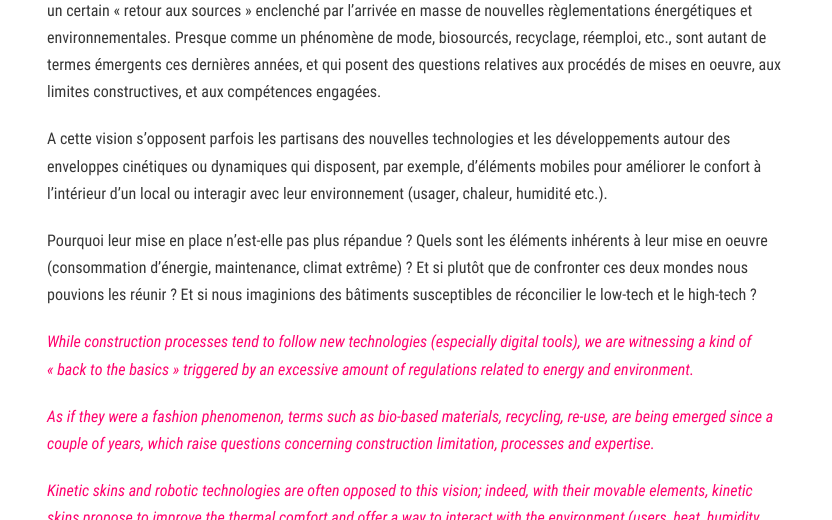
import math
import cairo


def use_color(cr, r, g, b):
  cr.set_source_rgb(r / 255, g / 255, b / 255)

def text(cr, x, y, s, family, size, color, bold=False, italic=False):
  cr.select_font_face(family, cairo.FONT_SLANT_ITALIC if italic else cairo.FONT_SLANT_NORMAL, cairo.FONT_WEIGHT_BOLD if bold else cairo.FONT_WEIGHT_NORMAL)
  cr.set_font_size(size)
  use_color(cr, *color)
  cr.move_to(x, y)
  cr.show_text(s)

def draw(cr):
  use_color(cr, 255, 255, 255)
  cr.paint()
  text(cr, 47, 16, "un certain « retour aux sources » enclenché par l’arrivée en masse de nouvelles règlementations énergétiques et", "Roboto Condensed", 16, (54, 54, 54))
  text(cr, 47, 43, "environnementales. Presque comme un phénomène de mode, biosourcés, recyclage, réemploi, etc., sont autant de", "Roboto Condensed", 16, (54, 54, 54))
  text(cr, 47, 70, "termes émergents ces dernières années, et qui posent des questions relatives aux procédés de mises en oeuvre, aux", "Roboto Condensed", 16, (54, 54, 54))
  text(cr, 47, 97, "limites constructives, et aux compétences engagées.", "Roboto Condensed", 16, (54, 54, 54))
  text(cr, 47, 144, "A cette vision s’opposent parfois les partisans des nouvelles technologies et les développements autour des", "Roboto Condensed", 16, (54, 54, 54))
  text(cr, 47, 172, "enveloppes cinétiques ou dynamiques qui disposent, par exemple, d’éléments mobiles pour améliorer le confort à", "Roboto Condensed", 16, (54, 54, 54))
  text(cr, 47, 199, "l’intérieur d’un local ou interagir avec leur environnement (usager, chaleur, humidité etc.).", "Roboto Condensed", 16, (54, 54, 54))
  text(cr, 47, 246, "Pourquoi leur mise en place n’est-elle pas plus répandue ? Quels sont les éléments inhérents à leur mise en oeuvre", "Roboto Condensed", 16, (54, 54, 54))
  text(cr, 47, 273, "(consommation d’énergie, maintenance, climat extrême) ? Et si plutôt que de confronter ces deux mondes nous", "Roboto Condensed", 16, (54, 54, 54))
  text(cr, 47, 300, "pouvions les réunir ? Et si nous imaginions des bâtiments susceptibles de réconcilier le low-tech et le high-tech ?", "Roboto Condensed", 16, (54, 54, 54))
  text(cr, 47, 347, "While construction processes tend to follow new technologies (especially digital tools), we are witnessing a kind of", "Roboto Condensed", 16, (255, 1, 109), italic=True)
  text(cr, 47, 375, "« back to the basics » triggered by an excessive amount of regulations related to energy and environment.", "Roboto Condensed", 16, (255, 1, 109), italic=True)
  text(cr, 47, 422, "As if they were a fashion phenomenon, terms such as bio-based materials, recycling, re-use, are being emerged since a", "Roboto Condensed", 16, (255, 1, 109), italic=True)
  text(cr, 47, 449, "couple of years, which raise questions concerning construction limitation, processes and expertise.", "Roboto Condensed", 16, (255, 1, 109), italic=True)
  text(cr, 47, 496, "Kinetic skins and robotic technologies are often opposed to this vision; indeed, with their movable elements, kinetic", "Roboto Condensed", 16, (255, 1, 109), italic=True)
  text(cr, 47, 523, "skins propose to improve the thermal comfort and offer a way to interact with the environment (users, heat, humidity", "Roboto Condensed", 16, (255, 1, 109), italic=True)


surface = cairo.ImageSurface(cairo.FORMAT_RGB24, 832, 520)
cr = cairo.Context(surface)
options = cairo.FontOptions()
options.set_hint_metrics(cairo.HINT_METRICS_OFF)
options.set_hint_style(cairo.HINT_STYLE_NONE)
cr.set_font_options(options)
cr.set_miter_limit(4)
draw(cr)
surface.write_to_png("out.png")
